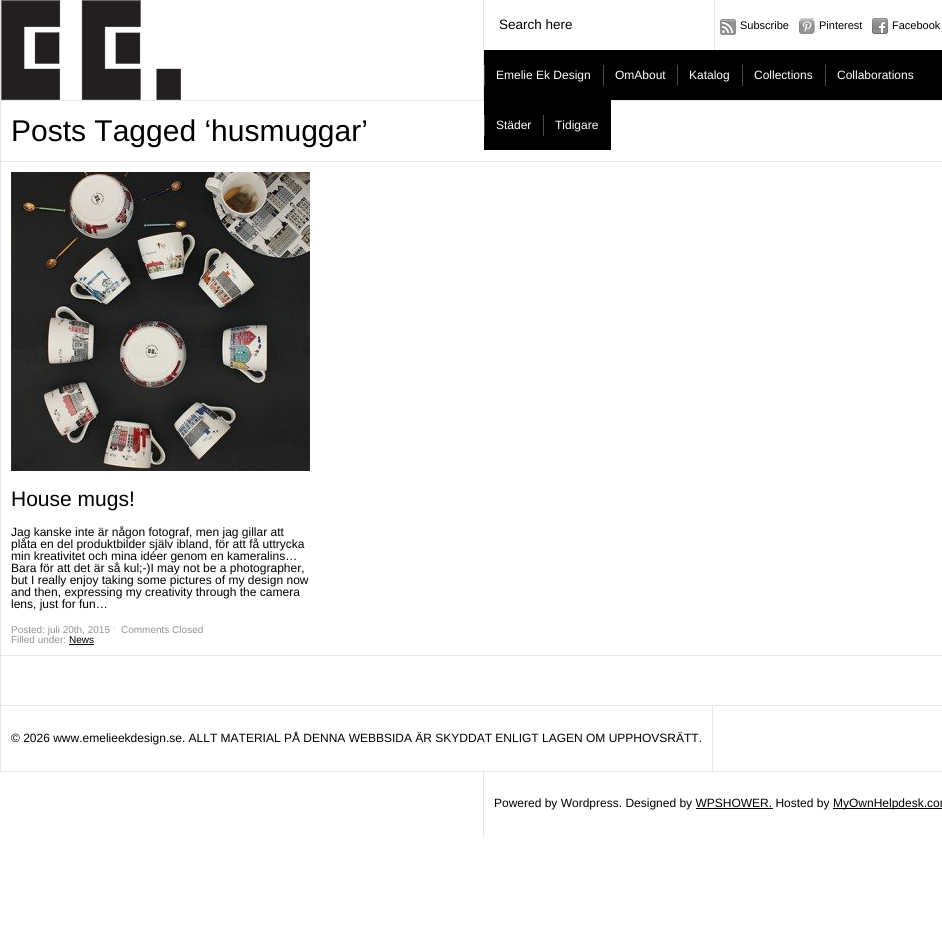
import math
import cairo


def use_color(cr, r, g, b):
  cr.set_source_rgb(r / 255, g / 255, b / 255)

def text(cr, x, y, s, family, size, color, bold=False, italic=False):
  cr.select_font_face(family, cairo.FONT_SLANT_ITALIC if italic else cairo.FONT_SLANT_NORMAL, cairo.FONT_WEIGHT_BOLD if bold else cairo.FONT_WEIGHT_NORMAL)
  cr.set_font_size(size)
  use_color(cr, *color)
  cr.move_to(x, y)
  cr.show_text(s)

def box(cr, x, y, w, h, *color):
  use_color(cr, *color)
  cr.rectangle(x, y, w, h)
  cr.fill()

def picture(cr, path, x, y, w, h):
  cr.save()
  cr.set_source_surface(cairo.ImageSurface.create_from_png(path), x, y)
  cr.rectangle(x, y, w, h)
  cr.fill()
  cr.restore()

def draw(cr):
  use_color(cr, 255, 255, 255)
  cr.paint()
  box(cr, 0, 771, 942, 1, 231, 231, 231)
  box(cr, 0, 0, 1, 772, 231, 231, 231)
  box(cr, 1, 161, 941, 1, 231, 231, 231)
  box(cr, 1, 100, 941, 1, 231, 231, 231)
  box(cr, 483, 0, 1, 100, 231, 231, 231)
  picture(cr, "img_01.png", 1, 0, 180, 100)
  box(cr, 714, 0, 1, 50, 231, 231, 231)
  picture(cr, "img_02.png", 720, 19, 16, 16)
  picture(cr, "img_03.png", 799, 18, 16, 16)
  picture(cr, "img_04.png", 872, 18, 16, 16)
  box(cr, 484, 50, 458, 50, 0, 0, 0)
  box(cr, 484, 65, 1, 21, 73, 73, 73)
  box(cr, 603, 65, 1, 21, 73, 73, 73)
  box(cr, 677, 65, 1, 21, 73, 73, 73)
  box(cr, 742, 65, 1, 21, 73, 73, 73)
  box(cr, 825, 65, 1, 21, 73, 73, 73)
  box(cr, 484, 100, 127, 50, 0, 0, 0)
  box(cr, 484, 115, 1, 21, 73, 73, 73)
  box(cr, 543, 115, 1, 21, 73, 73, 73)
  picture(cr, "img_05.png", 11, 172, 299, 299)
  box(cr, 69, 644, 25, 1, 0, 0, 0)
  box(cr, 1, 655, 941, 1, 231, 231, 231)
  box(cr, 1, 705, 941, 1, 231, 231, 231)
  box(cr, 712, 706, 1, 65, 231, 231, 231)
  box(cr, 483, 771, 1, 65, 231, 231, 231)
  box(cr, 833, 808, 109, 1, 0, 0, 0)
  box(cr, 696, 808, 77, 1, 0, 0, 0)
  text(cr, 11, 141, "Posts Tagged ‘husmuggar’", "Liberation Sans", 30, (0, 0, 0))
  text(cr, 499, 29, "Search here", "Liberation Sans", 13.5, (0, 0, 0))
  text(cr, 740, 29, "Subscribe", "Liberation Sans", 11, (0, 0, 0))
  text(cr, 819, 29, "Pinterest", "Liberation Sans", 11, (0, 0, 0))
  text(cr, 892, 29, "Facebook", "Liberation Sans", 11, (0, 0, 0))
  text(cr, 496, 79, "Emelie Ek Design", "Liberation Sans", 12, (255, 255, 255))
  text(cr, 615, 79, "OmAbout", "Liberation Sans", 12, (255, 255, 255))
  text(cr, 689, 79, "Katalog", "Liberation Sans", 12, (255, 255, 255))
  text(cr, 754, 79, "Collections", "Liberation Sans", 12, (255, 255, 255))
  text(cr, 837, 79, "Collaborations", "Liberation Sans", 12, (255, 255, 255))
  text(cr, 496, 129, "Städer", "Liberation Sans", 12, (255, 255, 255))
  text(cr, 555, 129, "Tidigare", "Liberation Sans", 12, (255, 255, 255))
  text(cr, 11, 506, "House mugs!", "Liberation Sans", 21, (0, 0, 0))
  text(cr, 11, 536, "Jag kanske inte är någon fotograf, men jag gillar att", "Liberation Sans", 12, (0, 0, 0))
  text(cr, 11, 548, "plåta en del produktbilder själv ibland, för att få uttrycka", "Liberation Sans", 12, (0, 0, 0))
  text(cr, 11, 560, "min kreativitet och mina idéer genom en kameralins…", "Liberation Sans", 12, (0, 0, 0))
  text(cr, 11, 572, "Bara för att det är så kul;-)I may not be a photographer,", "Liberation Sans", 12, (0, 0, 0))
  text(cr, 11, 584, "but I really enjoy taking some pictures of my design now", "Liberation Sans", 12, (0, 0, 0))
  text(cr, 11, 596, "and then, expressing my creativity through the camera", "Liberation Sans", 12, (0, 0, 0))
  text(cr, 11, 608, "lens, just for fun…", "Liberation Sans", 12, (0, 0, 0))
  text(cr, 11, 633, "Posted: juli 20th, 2015 ˑ", "Liberation Sans", 10, (146, 146, 146))
  text(cr, 121, 633, "Comments Closed", "Liberation Sans", 10, (146, 146, 146))
  text(cr, 11, 643, "Filled under:", "Liberation Sans", 10, (146, 146, 146))
  text(cr, 69, 643, "News", "Liberation Sans", 10, (0, 0, 0))
  text(cr, 11, 742, "© 2026 www.emelieekdesign.se. ALLT MATERIAL PÅ DENNA WEBBSIDA ÄR SKYDDAT ENLIGT LAGEN OM UPPHOVSRÄTT.", "Liberation Sans", 12, (0, 0, 0))
  text(cr, 494, 807, "Powered by Wordpress. Designed by WPSHOWER. Hosted by", "Liberation Sans", 12, (0, 0, 0))
  text(cr, 833, 807, "MyOwnHelpdesk.com", "Liberation Sans", 12, (0, 0, 0))


surface = cairo.ImageSurface(cairo.FORMAT_RGB24, 942, 928)
cr = cairo.Context(surface)
options = cairo.FontOptions()
options.set_hint_metrics(cairo.HINT_METRICS_OFF)
options.set_hint_style(cairo.HINT_STYLE_NONE)
cr.set_font_options(options)
cr.set_miter_limit(4)
draw(cr)
surface.write_to_png("out.png")
